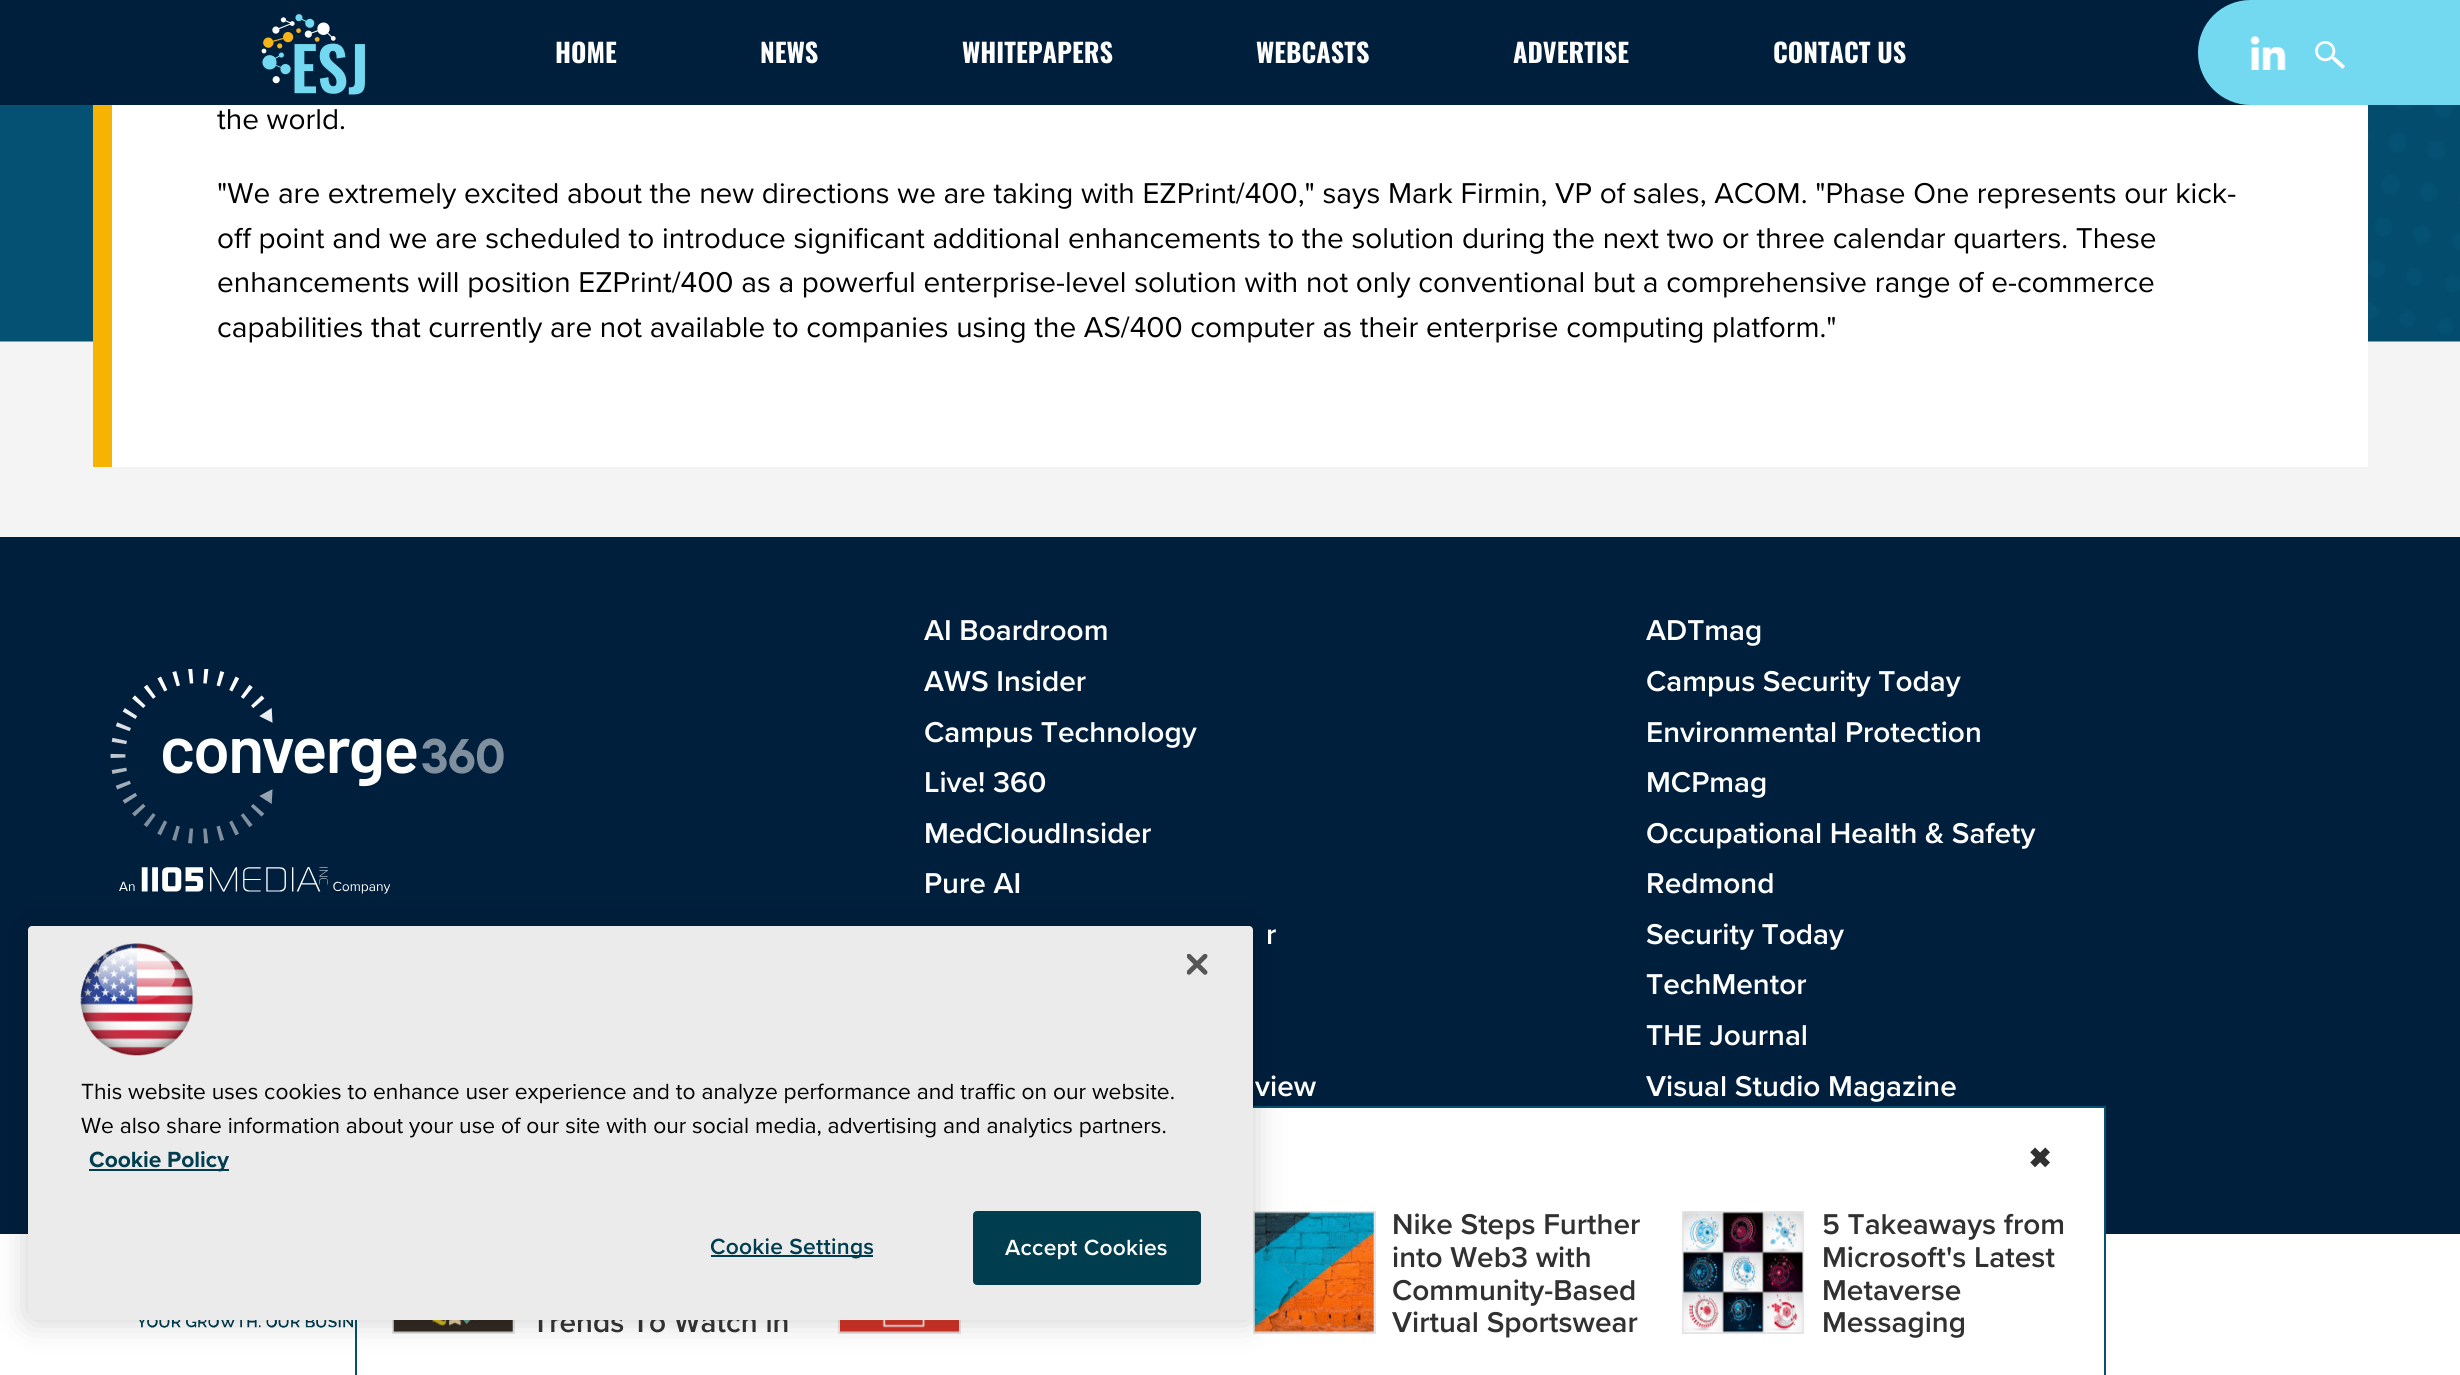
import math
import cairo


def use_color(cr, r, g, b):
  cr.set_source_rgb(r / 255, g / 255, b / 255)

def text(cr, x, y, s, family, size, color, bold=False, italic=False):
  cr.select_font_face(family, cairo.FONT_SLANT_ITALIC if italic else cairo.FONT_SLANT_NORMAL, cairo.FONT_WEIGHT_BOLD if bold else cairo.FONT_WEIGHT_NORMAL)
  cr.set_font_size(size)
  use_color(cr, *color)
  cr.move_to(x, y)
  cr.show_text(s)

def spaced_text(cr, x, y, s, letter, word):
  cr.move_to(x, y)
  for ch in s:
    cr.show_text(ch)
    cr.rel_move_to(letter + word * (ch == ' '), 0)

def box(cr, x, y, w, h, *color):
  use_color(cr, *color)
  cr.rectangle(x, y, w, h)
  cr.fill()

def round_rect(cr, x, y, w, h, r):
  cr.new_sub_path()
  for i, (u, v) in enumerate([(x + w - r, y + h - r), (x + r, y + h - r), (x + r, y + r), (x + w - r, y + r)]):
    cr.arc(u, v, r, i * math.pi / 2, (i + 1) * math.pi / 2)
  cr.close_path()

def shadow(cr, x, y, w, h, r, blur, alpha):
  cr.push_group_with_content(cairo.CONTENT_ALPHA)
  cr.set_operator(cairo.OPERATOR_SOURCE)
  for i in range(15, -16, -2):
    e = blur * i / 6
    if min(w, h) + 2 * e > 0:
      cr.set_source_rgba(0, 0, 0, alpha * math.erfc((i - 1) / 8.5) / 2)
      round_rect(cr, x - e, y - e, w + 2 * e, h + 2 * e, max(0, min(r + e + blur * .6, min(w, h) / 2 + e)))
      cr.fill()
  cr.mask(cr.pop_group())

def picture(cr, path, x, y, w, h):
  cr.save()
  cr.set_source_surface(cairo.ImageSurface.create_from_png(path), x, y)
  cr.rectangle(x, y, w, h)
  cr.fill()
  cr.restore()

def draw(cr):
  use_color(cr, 255, 255, 255)
  cr.paint()
  box(cr, 0, 341, 2460, 196, 244, 244, 244)
  picture(cr, "img_01.png", 0, 105, 2460, 237)
  box(cr, 0, 0, 2250, 105, 0, 31, 61)
  use_color(cr, 115, 217, 240)
  cr.new_path()
  cr.move_to(2250.5, 0)
  cr.line_to(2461, 0)
  cr.line_to(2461, 105)
  cr.line_to(2250.5, 105)
  cr.curve_to(2221.5, 105, 2198, 81.5, 2198, 52.5)
  cr.curve_to(2198, 23.5, 2221.5, 0, 2250.5, 0)
  cr.close_path()
  cr.fill()
  picture(cr, "img_02.png", 2250, 36, 36, 34)
  picture(cr, "img_03.png", 2315, 41, 30, 28)
  picture(cr, "img_04.png", 261, 14, 104, 81)
  box(cr, 112, 105, 2256, 362, 255, 255, 255)
  box(cr, 93, 105, 19, 362, 247, 179, 1)
  box(cr, 0, 537, 2460, 697, 0, 31, 61)
  box(cr, 357, 1108, 1747, 126, 255, 255, 255)
  box(cr, 1253, 1106, 852, 2, 4, 81, 116)
  box(cr, 2104, 1106, 2, 269, 4, 81, 116)
  box(cr, 355, 1320, 2, 55, 4, 81, 116)
  cr.rectangle(393, 1212, 121, 121)
  use_color(cr, 228, 228, 228)
  cr.stroke()
  picture(cr, "img_05.png", 393, 1320, 120, 13)
  cr.rectangle(839, 1212, 121, 121)
  cr.stroke()
  picture(cr, "img_06.png", 840, 1320, 119, 13)
  cr.rectangle(1254, 1212, 121, 121)
  cr.stroke()
  picture(cr, "img_07.png", 1254, 1212, 120, 121)
  cr.rectangle(1683, 1212, 120, 121)
  cr.stroke()
  picture(cr, "img_08.png", 1683, 1212, 120, 121)
  picture(cr, "img_09.png", 110, 669, 394, 175)
  picture(cr, "img_10.png", 119, 867, 271, 27)
  picture(cr, "img_11.png", 139, 1320, 214, 8)
  use_color(cr, 0, 0, 0)
  shadow(cr, 28, 926, 1225, 394, 4, 16, 0.2)
  text(cr, 555, 63, "HOME", "Oswald", 26.25, (255, 255, 255), bold=True)
  text(cr, 760, 63, "NEWS", "Oswald", 26.25, (255, 255, 255), bold=True)
  text(cr, 962, 63, "WHITEPAPERS", "Oswald", 26.25, (255, 255, 255), bold=True)
  text(cr, 1256, 63, "WEBCASTS", "Oswald", 26.25, (255, 255, 255), bold=True)
  text(cr, 1513, 63, "ADVERTISE", "Oswald", 26.25, (255, 255, 255), bold=True)
  text(cr, 1773, 63, "CONTACT US", "Oswald", 26.25, (255, 255, 255), bold=True)
  text(cr, 217, 129, "the world.", "Proxima Nova", 29.75, (0, 0, 0))
  text(cr, 217, 203, "\"We are extremely excited about the new directions we are taking with EZPrint/400,\" says Mark Firmin, VP of sales, ACOM. \"Phase One represents our kick-", "Proxima Nova", 29.75, (0, 0, 0))
  text(cr, 217, 248, "off point and we are scheduled to introduce significant additional enhancements to the solution during the next two or three calendar quarters. These", "Proxima Nova", 29.75, (0, 0, 0))
  text(cr, 217, 292, "enhancements will position EZPrint/400 as a powerful enterprise-level solution with not only conventional but a comprehensive range of e-commerce", "Proxima Nova", 29.75, (0, 0, 0))
  text(cr, 217, 337, "capabilities that currently are not available to companies using the AS/400 computer as their enterprise computing platform.\"", "Proxima Nova", 29.75, (0, 0, 0))
  text(cr, 2028, 1168, "✖", "DejaVu Sans", 28, (50, 49, 50), bold=True)
  text(cr, 532, 1332, "Trends To Watch in", "Proxima Nova SemiBold", 29.75, (50, 49, 50))
  text(cr, 1392, 1234, "Nike Steps Further", "Proxima Nova SemiBold", 29.75, (50, 49, 50))
  text(cr, 1392, 1267, "into Web3 with", "Proxima Nova SemiBold", 29.75, (50, 49, 50))
  text(cr, 1392, 1300, "Community-Based", "Proxima Nova SemiBold", 29.75, (50, 49, 50))
  text(cr, 1392, 1332, "Virtual Sportswear", "Proxima Nova SemiBold", 29.75, (50, 49, 50))
  text(cr, 1822, 1234, "5 Takeaways from", "Proxima Nova SemiBold", 29.75, (50, 49, 50))
  text(cr, 1822, 1267, "Microsoft's Latest", "Proxima Nova SemiBold", 29.75, (50, 49, 50))
  text(cr, 1822, 1300, "Metaverse", "Proxima Nova SemiBold", 29.75, (50, 49, 50))
  text(cr, 1822, 1332, "Messaging", "Proxima Nova SemiBold", 29.75, (50, 49, 50))
  text(cr, 924, 640, "AI Boardroom", "Proxima Nova SemiBold", 29.75, (255, 255, 255))
  text(cr, 1646, 640, "ADTmag", "Proxima Nova SemiBold", 29.75, (255, 255, 255))
  text(cr, 924, 691, "AWS Insider", "Proxima Nova SemiBold", 29.75, (255, 255, 255))
  text(cr, 1646, 691, "Campus Security Today", "Proxima Nova SemiBold", 29.75, (255, 255, 255))
  text(cr, 924, 742, "Campus Technology", "Proxima Nova SemiBold", 29.75, (255, 255, 255))
  text(cr, 1646, 742, "Environmental Protection", "Proxima Nova SemiBold", 29.75, (255, 255, 255))
  text(cr, 924, 792, "Live! 360", "Proxima Nova SemiBold", 29.75, (255, 255, 255))
  text(cr, 1646, 792, "MCPmag", "Proxima Nova SemiBold", 29.75, (255, 255, 255))
  text(cr, 924, 843, "MedCloudInsider", "Proxima Nova SemiBold", 29.75, (255, 255, 255))
  text(cr, 1646, 843, "Occupational Health & Safety", "Proxima Nova SemiBold", 29.75, (255, 255, 255))
  text(cr, 924, 893, "Pure AI", "Proxima Nova SemiBold", 29.75, (255, 255, 255))
  text(cr, 1646, 893, "Redmond", "Proxima Nova SemiBold", 29.75, (255, 255, 255))
  text(cr, 1266, 944, "r", "Proxima Nova SemiBold", 29.75, (255, 255, 255))
  text(cr, 1646, 944, "Security Today", "Proxima Nova SemiBold", 29.75, (255, 255, 255))
  text(cr, 1646, 994, "TechMentor", "Proxima Nova SemiBold", 29.75, (255, 255, 255))
  text(cr, 1646, 1045, "THE Journal", "Proxima Nova SemiBold", 29.75, (255, 255, 255))
  text(cr, 1255, 1096, "view", "Proxima Nova SemiBold", 29.75, (255, 255, 255))
  text(cr, 1646, 1096, "Visual Studio Magazine", "Proxima Nova SemiBold", 29.75, (255, 255, 255))
  use_color(cr, 235, 235, 235)
  round_rect(cr, 28, 926, 1225, 394, 4)
  cr.fill()
  picture(cr, "img_12.png", 1187, 954, 21, 21)
  picture(cr, "img_13.png", 80, 943, 113, 113)
  text(cr, 81, 1099, "This website uses cookies to enhance user experience and to analyze performance and traffic on our website.", "Proxima Nova", 22.75, (0, 0, 0))
  text(cr, 81, 1133, "We also share information about your use of our site with our social media, advertising and analytics partners.", "Proxima Nova", 22.75, (0, 0, 0))
  box(cr, 89, 1169, 140, 2, 0, 61, 79)
  text(cr, 89, 1167, "Cookie Policy", "Proxima Nova", 22.75, (0, 61, 79), bold=True)
  box(cr, 711, 1255, 162, 2, 0, 61, 79)
  cr.select_font_face("Proxima Nova SemiBold")
  spaced_text(cr, 710, 1254, "Cookie Settings", 0.25, 0)
  round_rect(cr, 974, 1212, 226, 72, 3)
  cr.fill_preserve()
  cr.stroke()
  use_color(cr, 255, 255, 255)
  spaced_text(cr, 1005, 1255, "Accept Cookies", 0.25, 0)


surface = cairo.ImageSurface(cairo.FORMAT_RGB24, 2460, 1375)
cr = cairo.Context(surface)
options = cairo.FontOptions()
options.set_hint_metrics(cairo.HINT_METRICS_OFF)
options.set_hint_style(cairo.HINT_STYLE_NONE)
cr.set_font_options(options)
cr.set_miter_limit(4)
draw(cr)
surface.write_to_png("out.png")
